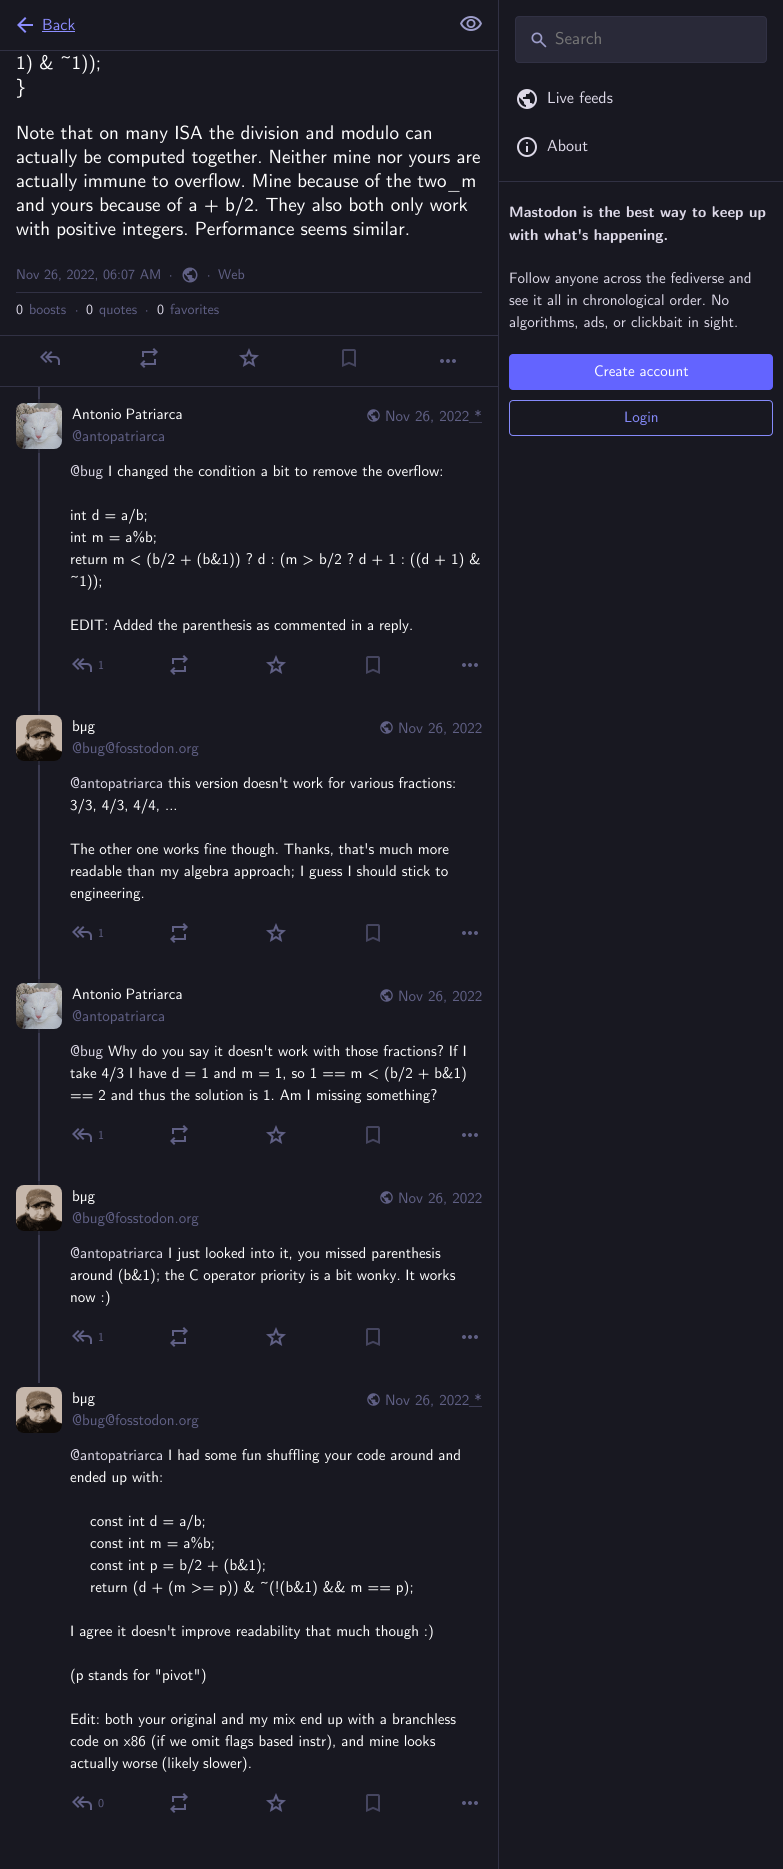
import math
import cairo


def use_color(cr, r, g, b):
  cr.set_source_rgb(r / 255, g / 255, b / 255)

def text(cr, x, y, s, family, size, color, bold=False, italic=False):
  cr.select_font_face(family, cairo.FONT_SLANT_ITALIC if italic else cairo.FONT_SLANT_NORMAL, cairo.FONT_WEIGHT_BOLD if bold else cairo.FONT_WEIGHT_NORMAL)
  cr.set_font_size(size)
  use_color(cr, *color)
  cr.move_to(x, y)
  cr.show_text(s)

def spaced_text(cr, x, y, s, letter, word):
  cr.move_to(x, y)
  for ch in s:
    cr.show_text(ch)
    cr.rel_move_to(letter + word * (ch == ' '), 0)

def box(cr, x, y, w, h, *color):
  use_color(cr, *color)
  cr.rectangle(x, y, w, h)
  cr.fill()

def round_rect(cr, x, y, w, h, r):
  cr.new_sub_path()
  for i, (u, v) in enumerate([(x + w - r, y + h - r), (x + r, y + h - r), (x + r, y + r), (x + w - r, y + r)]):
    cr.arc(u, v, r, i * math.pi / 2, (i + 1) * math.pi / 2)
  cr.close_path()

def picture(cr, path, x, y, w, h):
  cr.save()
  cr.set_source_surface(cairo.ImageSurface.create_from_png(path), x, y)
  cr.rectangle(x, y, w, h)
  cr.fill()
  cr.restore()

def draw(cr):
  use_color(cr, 24, 24, 33)
  cr.paint()
  box(cr, 0, 50, 498, 1, 49, 49, 68)
  picture(cr, "img_01.png", 17, 17, 16, 16)
  box(cr, 42, 31, 33, 1, 140, 141, 255)
  picture(cr, "img_02.png", 460, 16, 22, 15)
  box(cr, 16, 292, 466, 1, 49, 49, 68)
  picture(cr, "img_03.png", 182, 267, 16, 16)
  box(cr, 0, 335, 498, 1, 49, 49, 68)
  box(cr, 0, 386, 498, 1, 49, 49, 68)
  picture(cr, "img_04.png", 40, 351, 20, 14)
  picture(cr, "img_05.png", 140, 348, 18, 20)
  picture(cr, "img_06.png", 239, 348, 20, 19)
  picture(cr, "img_07.png", 342, 349, 14, 18)
  picture(cr, "img_08.png", 440, 359, 16, 4)
  box(cr, 38, 387, 2, 996, 58, 58, 80)
  box(cr, 38, 399, 2, 54, 41, 41, 56)
  use_color(cr, 32, 32, 44)
  round_rect(cr, 16, 403, 46, 46, 8)
  cr.fill()
  picture(cr, "img_09.png", 16, 403, 46, 46)
  picture(cr, "img_10.png", 367, 409, 13, 13)
  cr.new_path()
  cr.move_to(469.5, 422.5)
  cr.line_to(482, 422.5)
  use_color(cr, 96, 96, 133)
  cr.set_line_width(1)
  cr.set_dash([1, 1])
  cr.stroke()
  picture(cr, "img_04.png", 72, 658, 20, 14)
  picture(cr, "img_05.png", 170, 655, 18, 20)
  picture(cr, "img_06.png", 266, 655, 20, 19)
  picture(cr, "img_07.png", 366, 656, 14, 18)
  picture(cr, "img_08.png", 462, 663, 16, 4)
  box(cr, 38, 711, 2, 54, 41, 41, 56)
  use_color(cr, 32, 32, 44)
  round_rect(cr, 16, 715, 46, 46, 8)
  cr.fill()
  picture(cr, "img_11.png", 16, 715, 46, 46)
  picture(cr, "img_10.png", 380, 721, 13, 13)
  picture(cr, "img_04.png", 72, 926, 20, 14)
  picture(cr, "img_05.png", 170, 923, 18, 20)
  picture(cr, "img_06.png", 266, 923, 20, 19)
  picture(cr, "img_07.png", 366, 924, 14, 18)
  picture(cr, "img_08.png", 462, 931, 16, 4)
  box(cr, 38, 979, 2, 54, 41, 41, 56)
  use_color(cr, 32, 32, 44)
  round_rect(cr, 16, 983, 46, 46, 8)
  cr.fill()
  picture(cr, "img_09.png", 16, 983, 46, 46)
  picture(cr, "img_10.png", 380, 989, 13, 13)
  picture(cr, "img_04.png", 72, 1128, 20, 14)
  picture(cr, "img_05.png", 170, 1125, 18, 20)
  picture(cr, "img_06.png", 266, 1125, 20, 19)
  picture(cr, "img_07.png", 366, 1126, 14, 18)
  picture(cr, "img_08.png", 462, 1133, 16, 4)
  box(cr, 38, 1181, 2, 54, 41, 41, 56)
  use_color(cr, 32, 32, 44)
  round_rect(cr, 16, 1185, 46, 46, 8)
  cr.fill()
  picture(cr, "img_11.png", 16, 1185, 46, 46)
  picture(cr, "img_10.png", 380, 1191, 13, 13)
  picture(cr, "img_04.png", 72, 1330, 20, 14)
  picture(cr, "img_05.png", 170, 1327, 18, 20)
  picture(cr, "img_06.png", 266, 1327, 20, 19)
  picture(cr, "img_07.png", 366, 1328, 14, 18)
  picture(cr, "img_08.png", 462, 1335, 16, 4)
  round_rect(cr, 16, 1387, 46, 46, 8)
  cr.fill()
  picture(cr, "img_12.png", 16, 1387, 46, 46)
  picture(cr, "img_10.png", 367, 1393, 13, 13)
  cr.new_path()
  cr.move_to(469.5, 1406.5)
  cr.line_to(482, 1406.5)
  use_color(cr, 96, 96, 133)
  cr.stroke()
  picture(cr, "img_04.png", 72, 1796, 20, 14)
  picture(cr, "img_05.png", 170, 1793, 18, 20)
  picture(cr, "img_06.png", 266, 1793, 20, 19)
  picture(cr, "img_07.png", 366, 1794, 14, 18)
  picture(cr, "img_08.png", 462, 1801, 16, 4)
  box(cr, 498, 0, 1, 1869, 49, 49, 68)
  use_color(cr, 41, 41, 56)
  round_rect(cr, 515.5, 16.5, 251, 46, 3.5)
  cr.fill_preserve()
  use_color(cr, 49, 49, 68)
  cr.set_dash([])
  cr.stroke()
  picture(cr, "img_13.png", 531, 32, 16, 16)
  picture(cr, "img_14.png", 517, 89, 20, 20)
  picture(cr, "img_15.png", 517, 137, 20, 20)
  box(cr, 499, 181, 284, 1, 49, 49, 68)
  use_color(cr, 99, 100, 255)
  round_rect(cr, 509, 354, 264, 36, 4)
  cr.fill()
  round_rect(cr, 509.5, 400.5, 263, 35, 3.5)
  use_color(cr, 133, 138, 250)
  cr.stroke()
  text(cr, 42, 30, "Back", "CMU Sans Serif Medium", 16, (140, 141, 255))
  text(cr, 16, 69, "1) & ~1));", "CMU Sans Serif Medium", 19, (255, 255, 255))
  text(cr, 16, 93, "}", "CMU Sans Serif Medium", 19, (255, 255, 255))
  text(cr, 16, 139, "Note that on many ISA the division and modulo can", "CMU Sans Serif Medium", 19, (255, 255, 255))
  spaced_text(cr, 16, 163, "actually be computed together. Neither mine nor yours are", 0, -0.25)
  spaced_text(cr, 16, 187, "actually immune to overflow. Mine because of the two_m", 0, -0.25)
  text(cr, 16, 211, "and yours because of a + b/2. They also both only work", "CMU Sans Serif Medium", 19, (255, 255, 255))
  spaced_text(cr, 16, 235, "with positive integers. Performance seems similar.", 0, -0.25)
  text(cr, 16, 279, "Nov 26, 2022, 06:07 AM", "CMU Sans Serif Medium", 14, (96, 96, 133))
  text(cr, 169, 279, "·", "CMU Sans Serif Medium", 14, (96, 96, 133))
  text(cr, 207, 279, "·", "CMU Sans Serif Medium", 14, (96, 96, 133))
  text(cr, 218, 279, "Web", "CMU Sans Serif Medium", 14, (96, 96, 133))
  text(cr, 16, 314, "0", "CMU Sans Serif Medium", 14, (221, 217, 232))
  text(cr, 29, 314, "boosts", "CMU Sans Serif Medium", 14, (96, 96, 133))
  text(cr, 75, 314, "·", "CMU Sans Serif Medium", 14, (96, 96, 133))
  text(cr, 86, 314, "0", "CMU Sans Serif Medium", 14, (221, 217, 232))
  text(cr, 99, 314, "quotes", "CMU Sans Serif Medium", 14, (96, 96, 133))
  text(cr, 145, 314, "·", "CMU Sans Serif Medium", 14, (96, 96, 133))
  text(cr, 157, 314, "0", "CMU Sans Serif Medium", 14, (221, 217, 232))
  text(cr, 170, 314, "favorites", "CMU Sans Serif Medium", 14, (96, 96, 133))
  cr.set_font_size(15)
  use_color(cr, 255, 255, 255)
  spaced_text(cr, 72, 419, "Antonio Patriarca", 0, -1)
  text(cr, 72, 441, "@antopatriarca", "CMU Sans Serif Medium", 15, (96, 96, 133))
  text(cr, 385, 421, "Nov 26, 2022 *", "CMU Sans Serif Medium", 15, (96, 96, 133))
  text(cr, 70, 476, "@bug", "CMU Sans Serif Medium", 15, (221, 217, 232))
  text(cr, 108, 476, "I changed the condition a bit to remove the overflow:", "CMU Sans Serif Medium", 15, (255, 255, 255))
  text(cr, 70, 520, "int d = a/b;", "CMU Sans Serif Medium", 15, (255, 255, 255))
  text(cr, 70, 542, "int m = a%b;", "CMU Sans Serif Medium", 15, (255, 255, 255))
  text(cr, 70, 564, "return m < (b/2 + (b&1)) ? d : (m > b/2 ? d + 1 : ((d + 1) &", "CMU Sans Serif Medium", 15, (255, 255, 255))
  text(cr, 70, 586, "~1));", "CMU Sans Serif Medium", 15, (255, 255, 255))
  spaced_text(cr, 70, 630, "EDIT: Added the parenthesis as commented in a reply.", 0, -0.25)
  text(cr, 98, 669, "1", "CMU Sans Serif Medium", 12, (96, 96, 133))
  text(cr, 72, 731, "bµg", "CMU Sans Serif Medium", 15, (255, 255, 255))
  text(cr, 72, 753, "@bug@fosstodon.org", "CMU Sans Serif Medium", 15, (96, 96, 133))
  text(cr, 398, 733, "Nov 26, 2022", "CMU Sans Serif Medium", 15, (96, 96, 133))
  text(cr, 70, 788, "@antopatriarca", "CMU Sans Serif Medium", 15, (221, 217, 232))
  use_color(cr, 255, 255, 255)
  spaced_text(cr, 168, 788, "this version doesn't work for various fractions:", 0, -0.25)
  text(cr, 70, 810, "3/3, 4/3, 4/4, ...", "CMU Sans Serif Medium", 15, (255, 255, 255))
  spaced_text(cr, 70, 854, "The other one works fine though. Thanks, that's much more", 0, -0.25)
  text(cr, 70, 876, "readable than my algebra approach; I guess I should stick to", "CMU Sans Serif Medium", 15, (255, 255, 255))
  text(cr, 70, 898, "engineering.", "CMU Sans Serif Medium", 15, (255, 255, 255))
  text(cr, 98, 937, "1", "CMU Sans Serif Medium", 12, (96, 96, 133))
  cr.set_font_size(15)
  use_color(cr, 255, 255, 255)
  spaced_text(cr, 72, 999, "Antonio Patriarca", 0, -1)
  text(cr, 72, 1021, "@antopatriarca", "CMU Sans Serif Medium", 15, (96, 96, 133))
  text(cr, 398, 1001, "Nov 26, 2022", "CMU Sans Serif Medium", 15, (96, 96, 133))
  text(cr, 70, 1056, "@bug", "CMU Sans Serif Medium", 15, (221, 217, 232))
  text(cr, 108, 1056, "Why do you say it doesn't work with those fractions? If I", "CMU Sans Serif Medium", 15, (255, 255, 255))
  text(cr, 70, 1078, "take 4/3 I have d = 1 and m = 1, so 1 == m < (b/2 + b&1)", "CMU Sans Serif Medium", 15, (255, 255, 255))
  text(cr, 70, 1100, "== 2 and thus the solution is 1. Am I missing something?", "CMU Sans Serif Medium", 15, (255, 255, 255))
  text(cr, 98, 1139, "1", "CMU Sans Serif Medium", 12, (96, 96, 133))
  text(cr, 72, 1201, "bµg", "CMU Sans Serif Medium", 15, (255, 255, 255))
  text(cr, 72, 1223, "@bug@fosstodon.org", "CMU Sans Serif Medium", 15, (96, 96, 133))
  text(cr, 398, 1203, "Nov 26, 2022", "CMU Sans Serif Medium", 15, (96, 96, 133))
  text(cr, 70, 1258, "@antopatriarca", "CMU Sans Serif Medium", 15, (221, 217, 232))
  text(cr, 168, 1258, "I just looked into it, you missed parenthesis", "CMU Sans Serif Medium", 15, (255, 255, 255))
  spaced_text(cr, 70, 1280, "around (b&1); the C operator priority is a bit wonky. It works", 0, -0.4)
  text(cr, 70, 1302, "now :)", "CMU Sans Serif Medium", 15, (255, 255, 255))
  text(cr, 98, 1341, "1", "CMU Sans Serif Medium", 12, (96, 96, 133))
  text(cr, 72, 1403, "bµg", "CMU Sans Serif Medium", 15, (255, 255, 255))
  text(cr, 72, 1425, "@bug@fosstodon.org", "CMU Sans Serif Medium", 15, (96, 96, 133))
  text(cr, 385, 1405, "Nov 26, 2022 *", "CMU Sans Serif Medium", 15, (96, 96, 133))
  text(cr, 70, 1460, "@antopatriarca", "CMU Sans Serif Medium", 15, (221, 217, 232))
  text(cr, 168, 1460, "I had some fun shuffling your code around and", "CMU Sans Serif Medium", 15, (255, 255, 255))
  text(cr, 70, 1482, "ended up with:", "CMU Sans Serif Medium", 15, (255, 255, 255))
  text(cr, 90, 1526, "const int d = a/b;", "CMU Sans Serif Medium", 15, (255, 255, 255))
  text(cr, 90, 1548, "const int m = a%b;", "CMU Sans Serif Medium", 15, (255, 255, 255))
  text(cr, 90, 1570, "const int p = b/2 + (b&1);", "CMU Sans Serif Medium", 15, (255, 255, 255))
  text(cr, 90, 1592, "return (d + (m >= p)) & ~(!(b&1) && m == p);", "CMU Sans Serif Medium", 15, (255, 255, 255))
  text(cr, 70, 1636, "I agree it doesn't improve readability that much though :)", "CMU Sans Serif Medium", 15, (255, 255, 255))
  spaced_text(cr, 70, 1680, "(p stands for \"pivot\")", 0, -0.25)
  text(cr, 70, 1724, "Edit: both your original and my mix end up with a branchless", "CMU Sans Serif Medium", 15, (255, 255, 255))
  text(cr, 70, 1746, "code on x86 (if we omit flags based instr), and mine looks", "CMU Sans Serif Medium", 15, (255, 255, 255))
  spaced_text(cr, 70, 1768, "actually worse (likely slower).", 0, -1)
  text(cr, 98, 1807, "0", "CMU Sans Serif Medium", 12, (96, 96, 133))
  text(cr, 555, 44, "Search", "CMU Sans Serif Medium", 17, (117, 117, 117))
  text(cr, 547, 103, "Live feeds", "CMU Sans Serif Medium", 16, (221, 217, 232))
  text(cr, 547, 151, "About", "CMU Sans Serif Medium", 16, (221, 217, 232))
  text(cr, 509, 217, "Mastodon is the best way to keep up", "CMU Sans Serif", 15, (221, 217, 232), bold=True)
  text(cr, 509, 240, "with what's happening.", "CMU Sans Serif", 15, (221, 217, 232), bold=True)
  cr.select_font_face("CMU Sans Serif Medium")
  spaced_text(cr, 509, 283, "Follow anyone across the fediverse and", 0, -0.25)
  text(cr, 509, 305, "see it all in chronological order. No", "CMU Sans Serif Medium", 15, (221, 217, 232))
  text(cr, 509, 327, "algorithms, ads, or clickbait in sight.", "CMU Sans Serif Medium", 15, (221, 217, 232))
  text(cr, 594, 376, "Create account", "CMU Sans Serif Medium", 15, (255, 255, 255))
  text(cr, 624, 422, "Login", "CMU Sans Serif Medium", 15, (133, 138, 250))


surface = cairo.ImageSurface(cairo.FORMAT_RGB24, 783, 1869)
cr = cairo.Context(surface)
options = cairo.FontOptions()
options.set_hint_metrics(cairo.HINT_METRICS_OFF)
options.set_hint_style(cairo.HINT_STYLE_NONE)
cr.set_font_options(options)
cr.set_miter_limit(4)
draw(cr)
surface.write_to_png("out.png")
